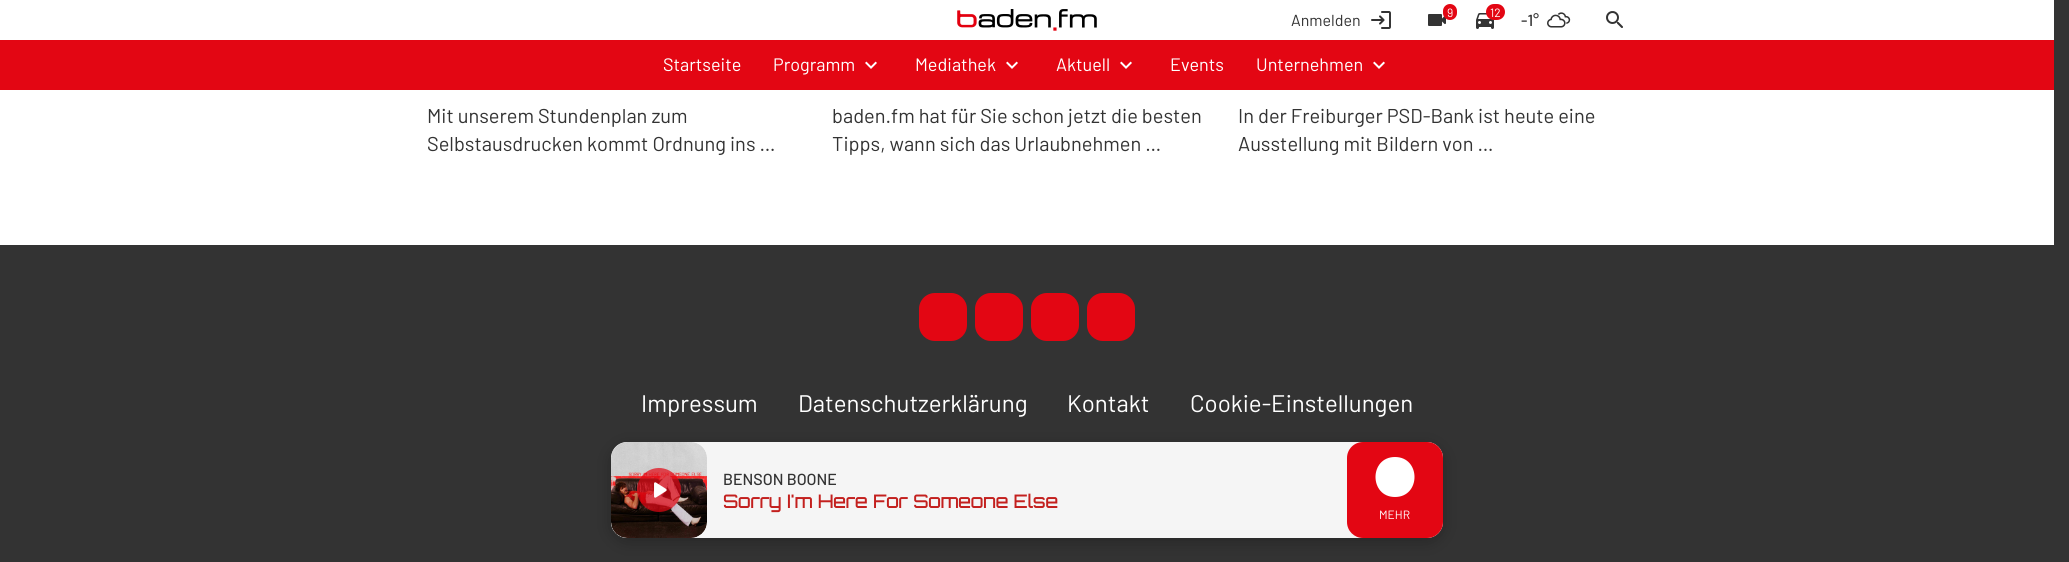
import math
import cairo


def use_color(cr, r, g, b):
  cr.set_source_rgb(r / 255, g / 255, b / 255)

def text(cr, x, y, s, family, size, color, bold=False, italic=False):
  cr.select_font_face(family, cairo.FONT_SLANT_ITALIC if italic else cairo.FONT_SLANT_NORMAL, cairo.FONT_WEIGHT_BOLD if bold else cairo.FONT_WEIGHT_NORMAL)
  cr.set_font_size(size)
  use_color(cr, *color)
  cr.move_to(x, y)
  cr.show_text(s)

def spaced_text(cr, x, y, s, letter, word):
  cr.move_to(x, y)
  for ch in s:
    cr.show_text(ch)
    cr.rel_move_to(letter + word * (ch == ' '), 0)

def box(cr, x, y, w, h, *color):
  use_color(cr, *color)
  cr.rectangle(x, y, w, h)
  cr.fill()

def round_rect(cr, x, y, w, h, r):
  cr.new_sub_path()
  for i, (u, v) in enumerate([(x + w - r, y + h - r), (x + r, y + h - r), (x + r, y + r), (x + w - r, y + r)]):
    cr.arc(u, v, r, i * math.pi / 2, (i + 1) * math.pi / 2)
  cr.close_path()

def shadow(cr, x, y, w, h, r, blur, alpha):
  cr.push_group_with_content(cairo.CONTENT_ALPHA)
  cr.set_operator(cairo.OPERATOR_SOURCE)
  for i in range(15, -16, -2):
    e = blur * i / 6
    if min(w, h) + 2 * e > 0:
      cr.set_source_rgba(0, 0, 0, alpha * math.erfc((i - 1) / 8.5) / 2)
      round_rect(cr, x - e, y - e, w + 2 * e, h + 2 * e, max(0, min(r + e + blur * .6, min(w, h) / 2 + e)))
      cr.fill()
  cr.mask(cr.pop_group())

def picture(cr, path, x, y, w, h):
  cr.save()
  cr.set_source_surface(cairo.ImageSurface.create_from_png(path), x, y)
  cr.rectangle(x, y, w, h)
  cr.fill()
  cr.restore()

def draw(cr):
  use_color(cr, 51, 51, 51)
  cr.paint()
  box(cr, 0, 90, 2054, 155, 255, 255, 255)
  box(cr, 0, 0, 2054, 40, 255, 255, 255)
  picture(cr, "img_01.png", 957, 9, 140, 22)
  picture(cr, "img_02.png", 1371, 11, 20, 18)
  picture(cr, "img_03.png", 1428, 14, 18, 12)
  use_color(cr, 227, 6, 19)
  round_rect(cr, 1443, 4, 14, 16, 7)
  cr.fill()
  picture(cr, "img_04.png", 1476, 13, 18, 16)
  round_rect(cr, 1486, 4, 19, 16, 8)
  cr.fill()
  picture(cr, "img_05.png", 1547, 12, 24, 16)
  picture(cr, "img_06.png", 1606, 11, 17, 17)
  box(cr, 0, 40, 2054, 50, 227, 6, 19)
  picture(cr, "img_07.png", 865, 61, 12, 8)
  picture(cr, "img_07.png", 1006, 61, 12, 8)
  picture(cr, "img_07.png", 1120, 61, 12, 8)
  picture(cr, "img_07.png", 1373, 61, 12, 8)
  round_rect(cr, 919, 293, 48, 48, 16)
  cr.fill()
  round_rect(cr, 975, 293, 48, 48, 16)
  cr.fill()
  round_rect(cr, 1031, 293, 48, 48, 16)
  cr.fill()
  round_rect(cr, 1087, 293, 48, 48, 16)
  cr.fill()
  use_color(cr, 0, 0, 0)
  shadow(cr, 611, 446, 832, 96, 16, 8, 0.25)
  use_color(cr, 245, 245, 245)
  round_rect(cr, 611, 442, 832, 96, 16)
  cr.fill()
  picture(cr, "img_08.png", 611, 442, 96, 96)
  cr.set_source_rgba(0.89, 0.024, 0.075, 0.7)
  cr.arc(659, 490, 22, 0, 2 * math.pi)
  cr.fill()
  picture(cr, "img_09.png", 654, 482, 13, 16)
  use_color(cr, 227, 6, 19)
  round_rect(cr, 1347, 442, 96, 96, 16)
  cr.fill()
  use_color(cr, 255, 255, 255)
  cr.new_path()
  cr.move_to(1395, 457)
  cr.curve_to(1421, 457, 1421, 497, 1395, 497)
  cr.curve_to(1369, 497, 1369, 457, 1395, 457)
  cr.close_path()
  cr.fill()
  text(cr, 1291, 26, "Anmelden", "Barlow", 16, (51, 51, 51))
  text(cr, 1447, 17, "9", "Barlow", 12, (255, 255, 255))
  text(cr, 1490, 17, "12", "Barlow", 12, (255, 255, 255))
  text(cr, 1521, 26, "-1°", "Barlow Medium", 16, (51, 51, 51))
  text(cr, 663, 71, "Startseite", "Barlow", 18, (255, 255, 255))
  text(cr, 773, 71, "Programm", "Barlow", 18, (255, 255, 255))
  text(cr, 915, 71, "Mediathek", "Barlow", 18, (255, 255, 255))
  text(cr, 1056, 71, "Aktuell", "Barlow", 18, (255, 255, 255))
  text(cr, 1170, 71, "Events", "Barlow", 18, (255, 255, 255))
  text(cr, 1256, 71, "Unternehmen", "Barlow", 18, (255, 255, 255))
  text(cr, 427, 123, "Mit unserem Stundenplan zum", "Barlow", 20, (51, 51, 51))
  text(cr, 427, 151, "Selbstausdrucken kommt Ordnung ins …", "Barlow", 20, (51, 51, 51))
  text(cr, 832, 123, "baden.fm hat für Sie schon jetzt die besten", "Barlow", 20, (51, 51, 51))
  text(cr, 832, 151, "Tipps, wann sich das Urlaubnehmen …", "Barlow", 20, (51, 51, 51))
  text(cr, 1238, 123, "In der Freiburger PSD-Bank ist heute eine", "Barlow", 20, (51, 51, 51))
  text(cr, 1238, 151, "Ausstellung mit Bildern von …", "Barlow", 20, (51, 51, 51))
  text(cr, 641, 412, "Impressum", "Barlow", 24, (255, 255, 255))
  text(cr, 798, 412, "Datenschutzerklärung", "Barlow", 24, (255, 255, 255))
  text(cr, 1067, 412, "Kontakt", "Barlow", 24, (255, 255, 255))
  text(cr, 1190, 412, "Cookie-Einstellungen", "Barlow", 24, (255, 255, 255))
  text(cr, 723, 485, "BENSON BOONE", "Barlow Medium", 16, (51, 51, 51))
  cr.select_font_face("Orbitron", cairo.FONT_SLANT_NORMAL, cairo.FONT_WEIGHT_BOLD)
  cr.set_font_size(18)
  use_color(cr, 195, 32, 30)
  spaced_text(cr, 723, 508, "Sorry I'm Here For Someone Else", 0, 0.75)
  text(cr, 1379, 519, "MEHR", "Barlow", 12, (255, 255, 255))


surface = cairo.ImageSurface(cairo.FORMAT_RGB24, 2069, 562)
cr = cairo.Context(surface)
options = cairo.FontOptions()
options.set_hint_metrics(cairo.HINT_METRICS_OFF)
options.set_hint_style(cairo.HINT_STYLE_NONE)
cr.set_font_options(options)
cr.set_miter_limit(4)
draw(cr)
surface.write_to_png("out.png")
